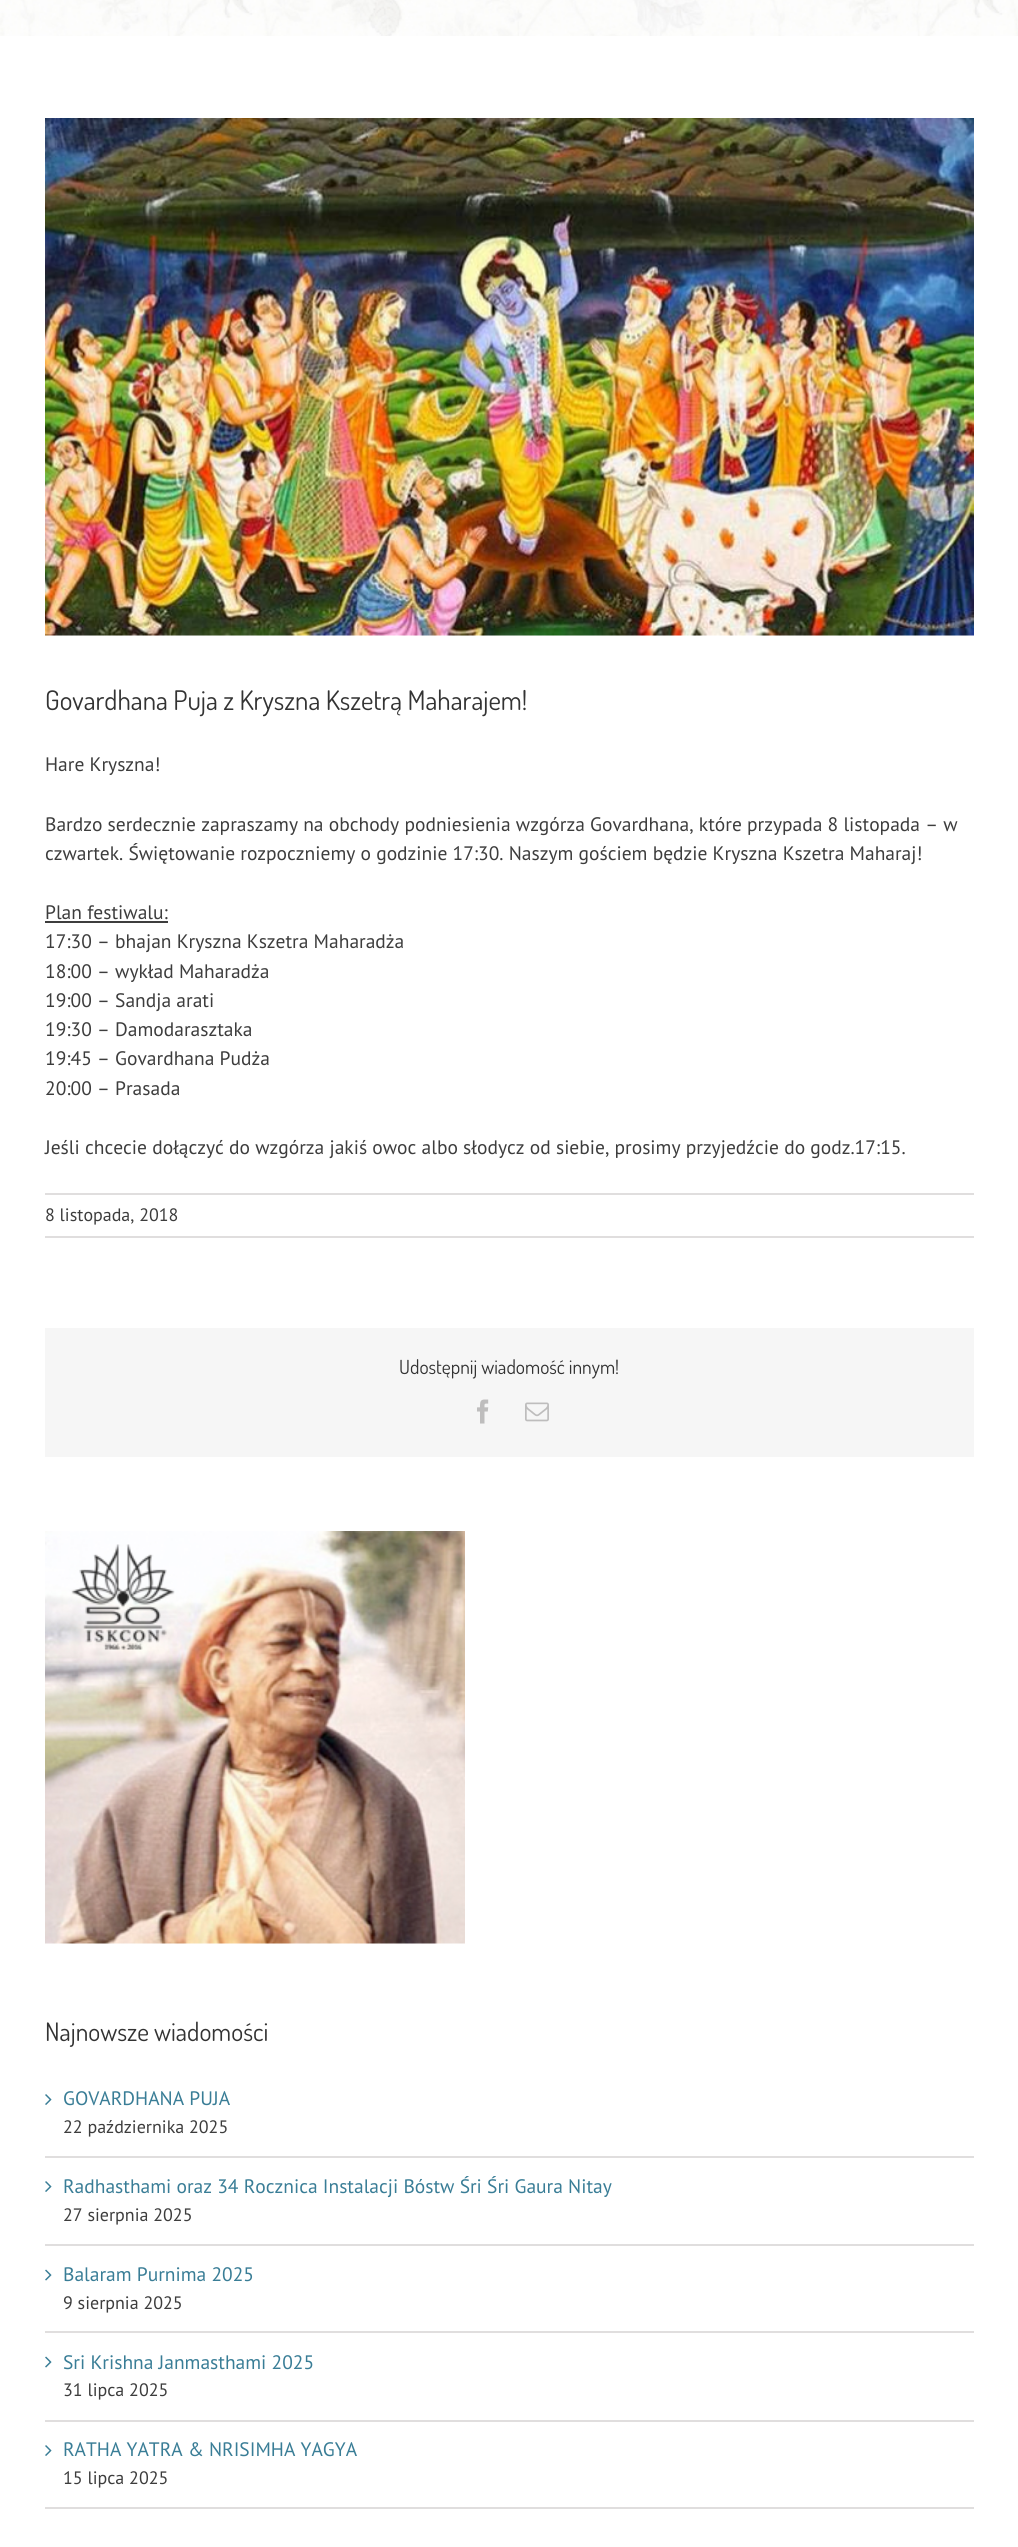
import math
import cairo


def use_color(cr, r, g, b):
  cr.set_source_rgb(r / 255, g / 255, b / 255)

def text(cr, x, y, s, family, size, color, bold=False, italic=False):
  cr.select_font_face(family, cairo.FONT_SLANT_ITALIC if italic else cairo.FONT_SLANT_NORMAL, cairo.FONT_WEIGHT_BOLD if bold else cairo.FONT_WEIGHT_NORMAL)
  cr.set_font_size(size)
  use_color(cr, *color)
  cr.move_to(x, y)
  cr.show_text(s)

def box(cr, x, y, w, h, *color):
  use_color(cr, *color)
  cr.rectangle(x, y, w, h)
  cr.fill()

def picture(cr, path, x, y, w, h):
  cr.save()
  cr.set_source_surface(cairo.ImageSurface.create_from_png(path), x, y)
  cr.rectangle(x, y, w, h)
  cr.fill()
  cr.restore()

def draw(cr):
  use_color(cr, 255, 255, 255)
  cr.paint()
  picture(cr, "img_01.png", 0, 0, 1018, 36)
  picture(cr, "img_02.png", 45, 118, 929, 518)
  box(cr, 45, 921, 123, 2, 61, 61, 61)
  box(cr, 45, 1193, 929, 2, 224, 222, 222)
  box(cr, 45, 1236, 929, 2, 224, 222, 222)
  box(cr, 45, 1328, 929, 129, 246, 246, 246)
  picture(cr, "img_03.png", 477, 1399, 12, 25)
  picture(cr, "img_04.png", 525, 1402, 24, 20)
  picture(cr, "img_05.png", 45, 1531, 420, 413)
  box(cr, 45, 2156, 929, 2, 224, 222, 222)
  picture(cr, "img_06.png", 45, 2094, 7, 11)
  box(cr, 45, 2244, 929, 2, 224, 222, 222)
  picture(cr, "img_06.png", 45, 2181, 7, 11)
  box(cr, 45, 2331, 929, 2, 224, 222, 222)
  picture(cr, "img_07.png", 45, 2269, 7, 12)
  box(cr, 45, 2420, 929, 2, 224, 222, 222)
  picture(cr, "img_07.png", 45, 2356, 7, 12)
  box(cr, 45, 2507, 929, 2, 224, 222, 222)
  picture(cr, "img_06.png", 45, 2445, 7, 11)
  text(cr, 45, 710, "Govardhana Puja z Kryszna Kszetrą Maharajem!", "Dosis", 27, (51, 51, 51))
  text(cr, 45, 771, "Hare Kryszna!", "PT Sans", 19.5, (61, 61, 61))
  text(cr, 45, 831, "Bardzo serdecznie zapraszamy na obchody podniesienia wzgórza Govardhana, które przypada 8 listopada – w", "PT Sans", 19.5, (61, 61, 61))
  text(cr, 45, 860, "czwartek. Świętowanie rozpoczniemy o godzinie 17:30. Naszym gościem będzie Kryszna Kszetra Maharaj!", "PT Sans", 19.5, (61, 61, 61))
  text(cr, 45, 919, "Plan festiwalu:", "PT Sans", 19.5, (61, 61, 61))
  text(cr, 45, 948, "17:30 – bhajan Kryszna Kszetra Maharadża", "PT Sans", 19.5, (61, 61, 61))
  text(cr, 45, 978, "18:00 – wykład Maharadża", "PT Sans", 19.5, (61, 61, 61))
  text(cr, 45, 1007, "19:00 – Sandja arati", "PT Sans", 19.5, (61, 61, 61))
  text(cr, 45, 1036, "19:30 – Damodarasztaka", "PT Sans", 19.5, (61, 61, 61))
  text(cr, 45, 1065, "19:45 – Govardhana Pudża", "PT Sans", 19.5, (61, 61, 61))
  text(cr, 45, 1095, "20:00 – Prasada", "PT Sans", 19.5, (61, 61, 61))
  text(cr, 45, 1154, "Jeśli chcecie dołączyć do wzgórza jakiś owoc albo słodycz od siebie, prosimy przyjedźcie do godz.17:15.", "PT Sans", 19.5, (61, 61, 61))
  text(cr, 45, 1221, "8 listopada, 2018", "PT Sans", 18, (61, 61, 61))
  text(cr, 399, 1374, "Udostępnij wiadomość innym!", "Dosis", 19.5, (51, 51, 51))
  text(cr, 45, 2041, "Najnowsze wiadomości", "Dosis", 25.5, (51, 51, 51))
  text(cr, 63, 2105, "GOVARDHANA PUJA", "PT Sans", 19.5, (57, 125, 150))
  text(cr, 63, 2133, "22 października 2025", "PT Sans", 18, (61, 61, 61))
  text(cr, 63, 2193, "Radhasthami oraz 34 Rocznica Instalacji Bóstw Śri Śri Gaura Nitay", "PT Sans", 19.5, (57, 125, 150))
  text(cr, 63, 2221, "27 sierpnia 2025", "PT Sans", 18, (61, 61, 61))
  text(cr, 63, 2281, "Balaram Purnima 2025", "PT Sans", 19.5, (57, 125, 150))
  text(cr, 63, 2309, "9 sierpnia 2025", "PT Sans", 18, (61, 61, 61))
  text(cr, 63, 2369, "Sri Krishna Janmasthami 2025", "PT Sans", 19.5, (57, 125, 150))
  text(cr, 63, 2396, "31 lipca 2025", "PT Sans", 18, (61, 61, 61))
  text(cr, 63, 2456, "RATHA YATRA & NRISIMHA YAGYA", "PT Sans", 19.5, (57, 125, 150))
  text(cr, 63, 2484, "15 lipca 2025", "PT Sans", 18, (61, 61, 61))


surface = cairo.ImageSurface(cairo.FORMAT_RGB24, 1018, 2547)
cr = cairo.Context(surface)
options = cairo.FontOptions()
options.set_hint_metrics(cairo.HINT_METRICS_OFF)
options.set_hint_style(cairo.HINT_STYLE_NONE)
cr.set_font_options(options)
cr.set_miter_limit(4)
draw(cr)
surface.write_to_png("out.png")
